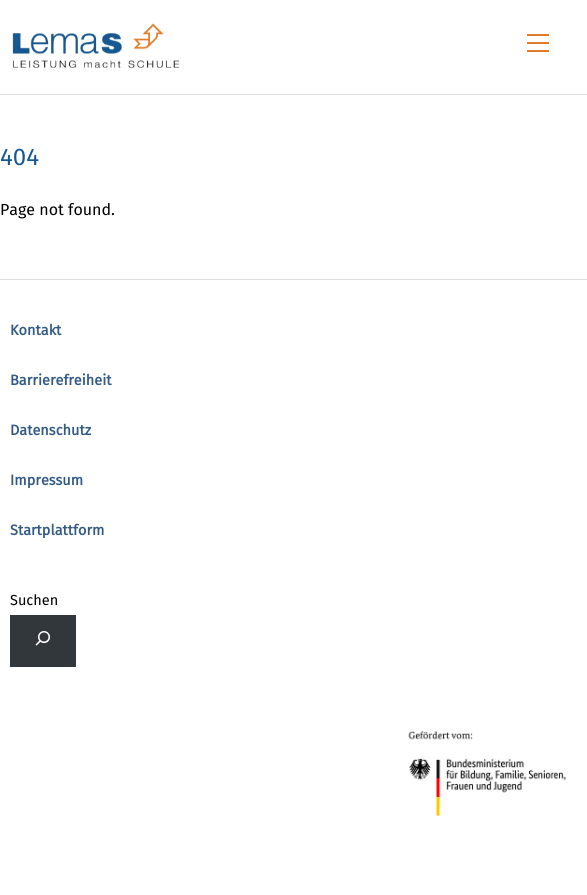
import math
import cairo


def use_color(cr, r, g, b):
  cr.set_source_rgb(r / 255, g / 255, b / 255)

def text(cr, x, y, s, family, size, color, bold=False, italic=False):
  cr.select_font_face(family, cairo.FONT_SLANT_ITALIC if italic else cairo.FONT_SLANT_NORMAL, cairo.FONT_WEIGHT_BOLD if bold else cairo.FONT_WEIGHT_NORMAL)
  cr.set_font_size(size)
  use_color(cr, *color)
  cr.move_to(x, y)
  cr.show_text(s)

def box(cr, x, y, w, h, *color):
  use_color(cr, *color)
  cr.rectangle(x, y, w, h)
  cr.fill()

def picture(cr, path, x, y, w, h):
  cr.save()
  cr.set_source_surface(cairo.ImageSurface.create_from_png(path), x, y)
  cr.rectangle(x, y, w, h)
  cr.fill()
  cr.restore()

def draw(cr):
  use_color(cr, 255, 255, 255)
  cr.paint()
  box(cr, 0, 94, 587, 1, 221, 221, 221)
  picture(cr, "img_01.png", 12, 23, 168, 46)
  box(cr, 527, 50, 22, 2, 228, 122, 36)
  box(cr, 527, 34, 22, 2, 228, 122, 36)
  box(cr, 527, 42, 22, 2, 228, 122, 36)
  box(cr, 0, 279, 587, 1, 221, 221, 221)
  box(cr, 10, 615, 66, 52, 50, 55, 60)
  picture(cr, "img_02.png", 35, 631, 16, 15)
  picture(cr, "img_03.png", 408, 731, 158, 86)
  text(cr, 0, 165, "404", "Fira Sans", 24, (23, 89, 147))
  text(cr, 0, 215, "Page not found.", "Fira Sans", 16, (0, 0, 0))
  text(cr, 10, 335, "Kontakt", "Fira Sans", 14.5, (50, 90, 134), bold=True)
  text(cr, 10, 385, "Barrierefreiheit", "Fira Sans", 14.5, (50, 90, 134), bold=True)
  text(cr, 10, 435, "Datenschutz", "Fira Sans", 14.5, (50, 90, 134), bold=True)
  text(cr, 10, 485, "Impressum", "Fira Sans", 14.5, (50, 90, 134), bold=True)
  text(cr, 10, 535, "Startplattform", "Fira Sans", 14.5, (50, 90, 134), bold=True)
  text(cr, 10, 605, "Suchen", "Fira Sans", 14.5, (0, 0, 0))


surface = cairo.ImageSurface(cairo.FORMAT_RGB24, 587, 895)
cr = cairo.Context(surface)
options = cairo.FontOptions()
options.set_hint_metrics(cairo.HINT_METRICS_OFF)
options.set_hint_style(cairo.HINT_STYLE_NONE)
cr.set_font_options(options)
cr.set_miter_limit(4)
draw(cr)
surface.write_to_png("out.png")
